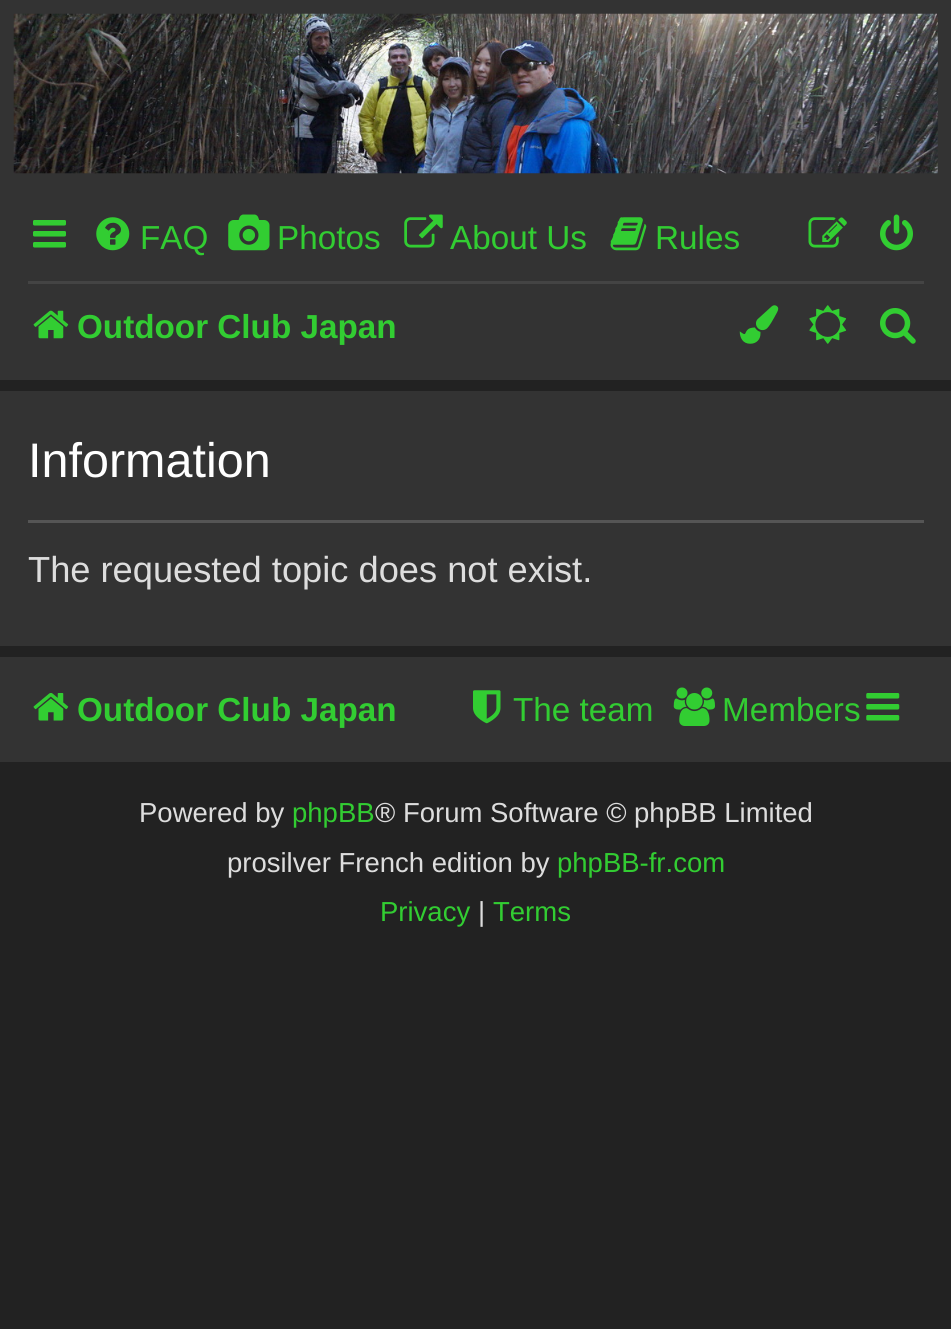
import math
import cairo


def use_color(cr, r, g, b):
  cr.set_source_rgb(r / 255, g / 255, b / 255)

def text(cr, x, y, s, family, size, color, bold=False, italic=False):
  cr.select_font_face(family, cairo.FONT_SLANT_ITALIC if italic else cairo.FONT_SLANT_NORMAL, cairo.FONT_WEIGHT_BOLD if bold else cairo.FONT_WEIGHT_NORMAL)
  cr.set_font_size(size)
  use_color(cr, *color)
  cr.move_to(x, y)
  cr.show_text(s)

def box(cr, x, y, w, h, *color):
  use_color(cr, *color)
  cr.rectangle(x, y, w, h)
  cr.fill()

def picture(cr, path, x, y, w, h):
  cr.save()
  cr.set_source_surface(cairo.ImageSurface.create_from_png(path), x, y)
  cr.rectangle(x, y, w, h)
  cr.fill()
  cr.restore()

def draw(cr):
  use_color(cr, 34, 34, 34)
  cr.paint()
  box(cr, 0, 0, 951, 380, 51, 51, 51)
  picture(cr, "img_01.png", 13, 13, 925, 161)
  picture(cr, "img_02.png", 33, 220, 33, 28)
  picture(cr, "img_03.png", 96, 217, 34, 34)
  picture(cr, "img_04.png", 228, 214, 42, 37)
  picture(cr, "img_05.png", 404, 214, 39, 34)
  picture(cr, "img_06.png", 610, 217, 37, 34)
  picture(cr, "img_07.png", 808, 217, 39, 31)
  picture(cr, "img_08.png", 880, 214, 33, 37)
  box(cr, 28, 281, 896, 3, 68, 68, 68)
  picture(cr, "img_09.png", 33, 310, 36, 29)
  picture(cr, "img_10.png", 739, 305, 40, 39)
  picture(cr, "img_11.png", 809, 305, 38, 39)
  picture(cr, "img_12.png", 880, 308, 36, 36)
  box(cr, 0, 391, 951, 255, 51, 51, 51)
  box(cr, 28, 520, 896, 3, 85, 85, 85)
  box(cr, 0, 657, 951, 105, 51, 51, 51)
  picture(cr, "img_13.png", 33, 693, 36, 28)
  picture(cr, "img_14.png", 473, 690, 28, 34)
  picture(cr, "img_15.png", 673, 687, 42, 39)
  picture(cr, "img_16.png", 866, 693, 34, 28)
  text(cr, 140, 249, "FAQ", "Liberation Sans", 33.25, (50, 205, 50))
  text(cr, 277, 249, "Photos", "Liberation Sans", 33.25, (50, 205, 50))
  text(cr, 450, 249, "About Us", "Liberation Sans", 33.25, (50, 205, 50))
  text(cr, 655, 249, "Rules", "Liberation Sans", 33.25, (50, 205, 50))
  text(cr, 77, 338, "Outdoor Club Japan", "Liberation Sans", 33.25, (50, 205, 50), bold=True)
  text(cr, 28, 477, "Information", "Liberation Sans", 48.5, (255, 255, 255))
  text(cr, 28, 582, "The requested topic does not exist.", "Liberation Sans", 36.25, (221, 221, 221))
  text(cr, 77, 721, "Outdoor Club Japan", "Liberation Sans", 33.25, (50, 205, 50), bold=True)
  text(cr, 513, 721, "The team", "Liberation Sans", 33.25, (50, 205, 50))
  text(cr, 722, 721, "Members", "Liberation Sans", 33.25, (50, 205, 50))
  text(cr, 139, 822, "Powered by", "Liberation Sans", 27.5, (221, 221, 221))
  text(cr, 292, 822, "phpBB", "Liberation Sans", 27.5, (50, 205, 50))
  text(cr, 375, 822, "® Forum Software © phpBB Limited", "Liberation Sans", 27.5, (221, 221, 221))
  text(cr, 227, 872, "prosilver French edition by", "Liberation Sans", 27.5, (221, 221, 221))
  text(cr, 557, 872, "phpBB-fr.com", "Liberation Sans", 27.5, (50, 205, 50))
  text(cr, 380, 921, "Privacy", "Liberation Sans", 27.5, (50, 205, 50))
  text(cr, 478, 921, "|", "Liberation Sans", 27.5, (221, 221, 221))
  text(cr, 493, 921, "Terms", "Liberation Sans", 27.5, (50, 205, 50))


surface = cairo.ImageSurface(cairo.FORMAT_RGB24, 951, 1329)
cr = cairo.Context(surface)
options = cairo.FontOptions()
options.set_hint_metrics(cairo.HINT_METRICS_OFF)
options.set_hint_style(cairo.HINT_STYLE_NONE)
cr.set_font_options(options)
cr.set_miter_limit(4)
draw(cr)
surface.write_to_png("out.png")
